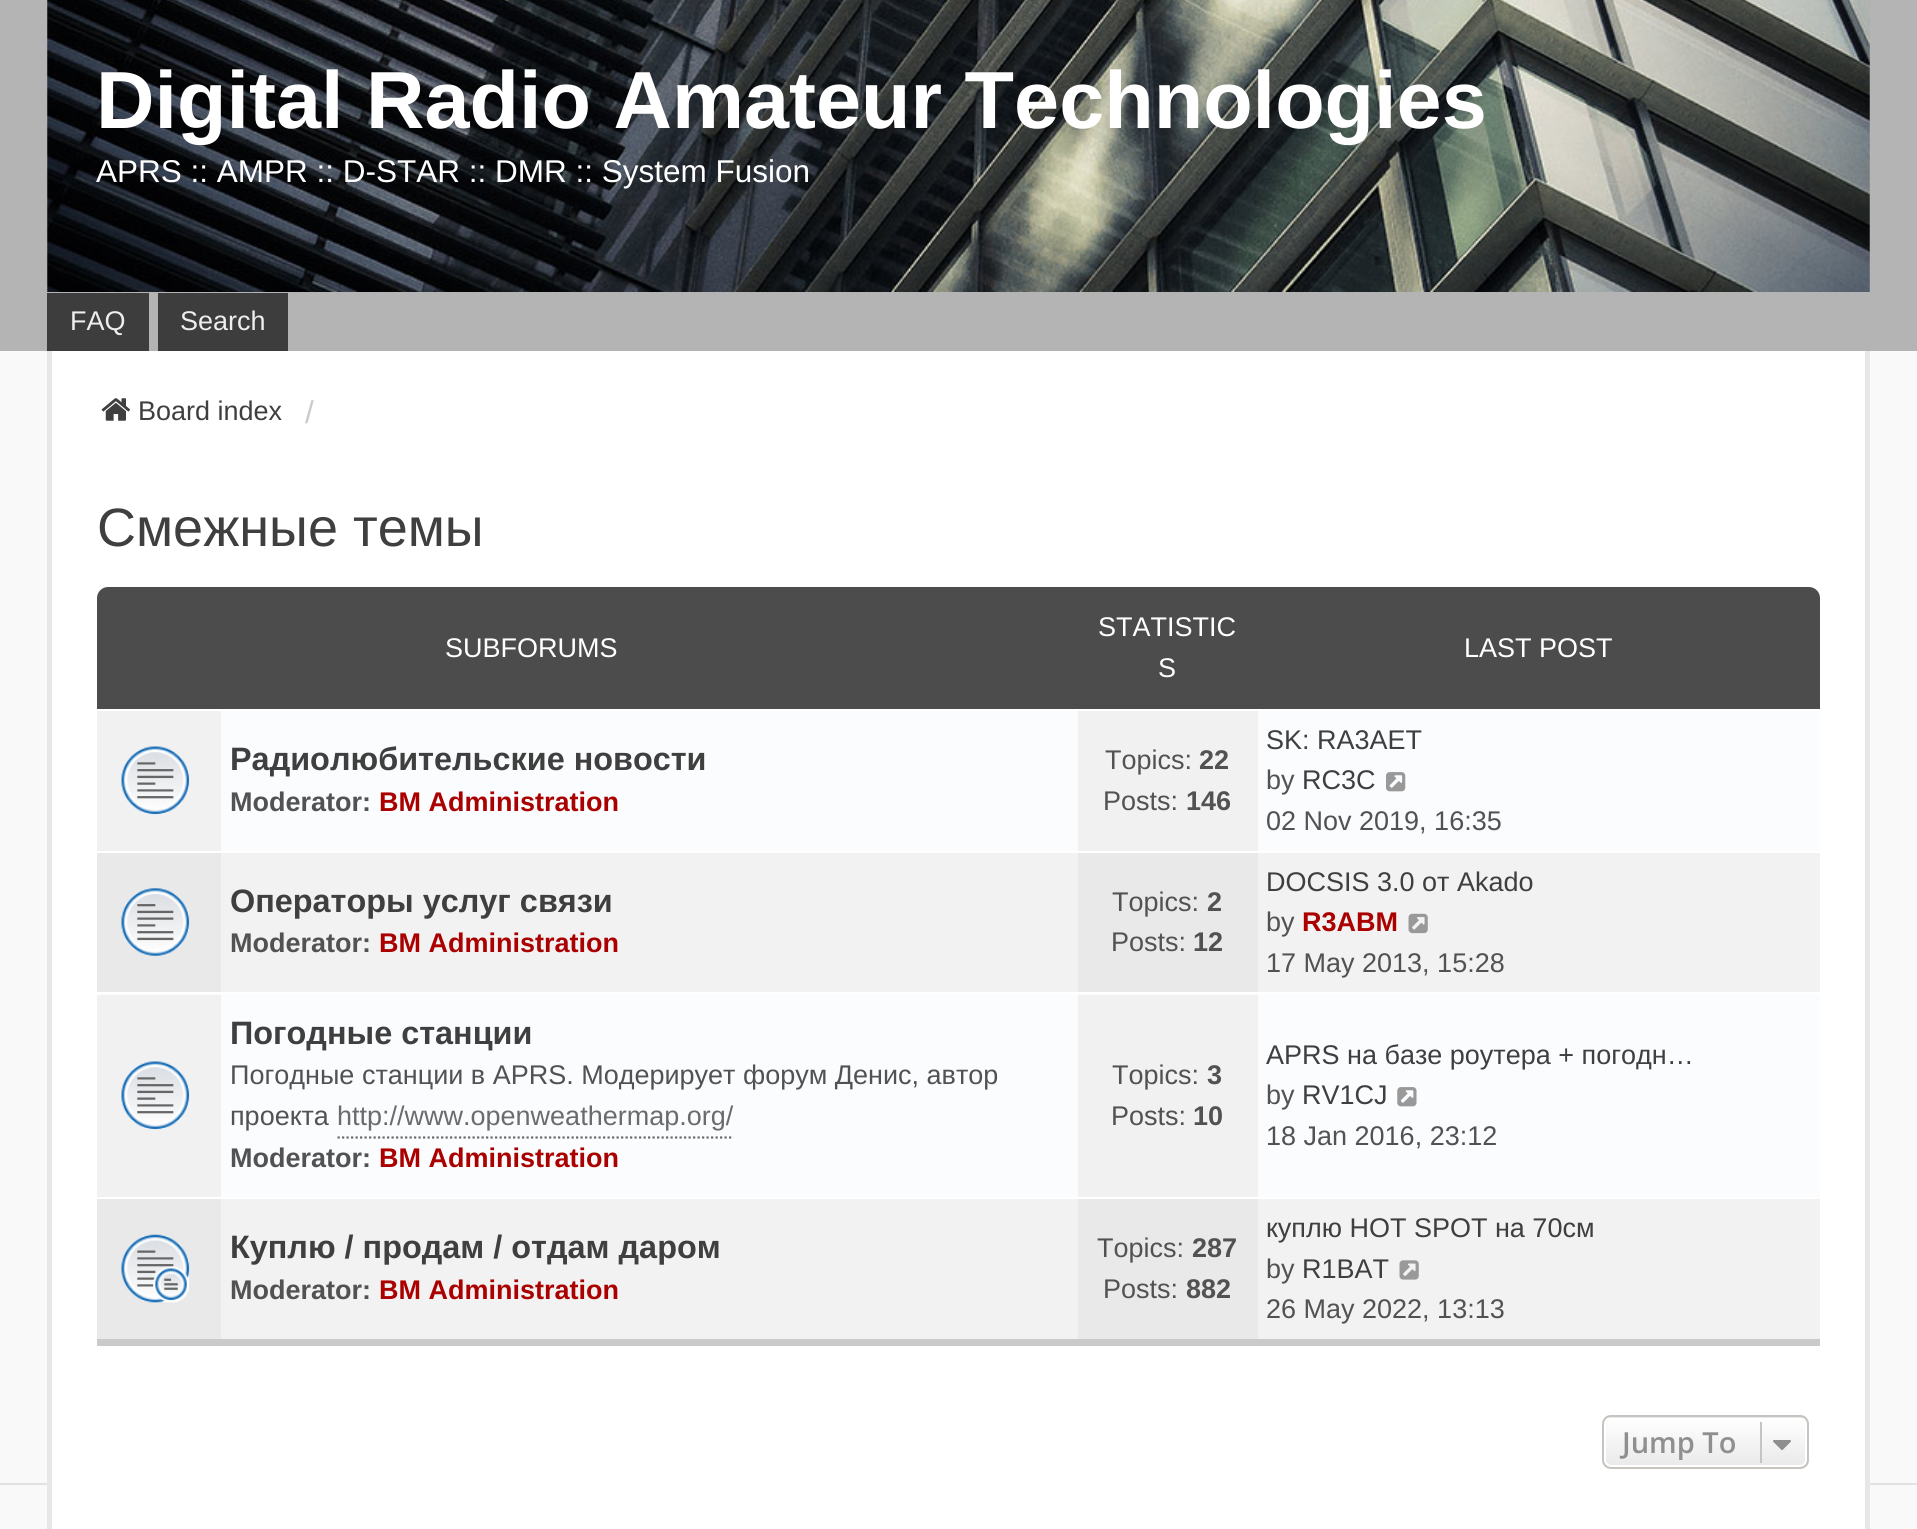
import math
import cairo


def use_color(cr, r, g, b):
  cr.set_source_rgb(r / 255, g / 255, b / 255)

def text(cr, x, y, s, family, size, color, bold=False, italic=False):
  cr.select_font_face(family, cairo.FONT_SLANT_ITALIC if italic else cairo.FONT_SLANT_NORMAL, cairo.FONT_WEIGHT_BOLD if bold else cairo.FONT_WEIGHT_NORMAL)
  cr.set_font_size(size)
  use_color(cr, *color)
  cr.move_to(x, y)
  cr.show_text(s)

def box(cr, x, y, w, h, *color):
  use_color(cr, *color)
  cr.rectangle(x, y, w, h)
  cr.fill()

def round_rect(cr, x, y, w, h, r):
  cr.new_sub_path()
  for i, (u, v) in enumerate([(x + w - r, y + h - r), (x + r, y + h - r), (x + r, y + r), (x + w - r, y + r)]):
    cr.arc(u, v, r, i * math.pi / 2, (i + 1) * math.pi / 2)
  cr.close_path()

def picture(cr, path, x, y, w, h):
  cr.save()
  cr.set_source_surface(cairo.ImageSurface.create_from_png(path), x, y)
  cr.rectangle(x, y, w, h)
  cr.fill()
  cr.restore()

def draw(cr):
  use_color(cr, 249, 249, 249)
  cr.paint()
  box(cr, 0, 0, 1917, 351, 180, 180, 180)
  picture(cr, "img_01.png", 47, 0, 1823, 292)
  box(cr, 47, 293, 102, 58, 61, 61, 61)
  box(cr, 158, 293, 130, 58, 61, 61, 61)
  box(cr, 0, 1483, 1917, 2, 226, 226, 226)
  box(cr, 52, 351, 1813, 1178, 255, 255, 255)
  box(cr, 1865, 351, 5, 1178, 231, 231, 231)
  box(cr, 47, 351, 5, 1178, 231, 231, 231)
  picture(cr, "img_02.png", 101, 398, 29, 23)
  use_color(cr, 76, 76, 76)
  cr.new_path()
  cr.move_to(108, 587)
  cr.line_to(1809, 587)
  cr.curve_to(1815, 587, 1820, 592, 1820, 598)
  cr.line_to(1820, 1346)
  cr.line_to(97, 1346)
  cr.line_to(97, 598)
  cr.curve_to(97, 592, 102, 587, 108, 587)
  cr.close_path()
  cr.fill()
  box(cr, 97, 1339, 1723, 7, 202, 202, 202)
  box(cr, 97, 711, 1723, 486, 250, 252, 254)
  box(cr, 97, 709, 1723, 2, 255, 255, 255)
  box(cr, 97, 711, 124, 140, 241, 241, 241)
  picture(cr, "img_03.png", 121, 746, 69, 69)
  box(cr, 1078, 711, 180, 140, 241, 241, 241)
  picture(cr, "img_04.png", 1386, 772, 20, 20)
  box(cr, 221, 853, 1599, 139, 242, 242, 242)
  box(cr, 97, 851, 1723, 2, 255, 255, 255)
  box(cr, 97, 853, 124, 139, 233, 233, 233)
  picture(cr, "img_05.png", 121, 888, 69, 68)
  box(cr, 1078, 853, 180, 139, 233, 233, 233)
  picture(cr, "img_06.png", 1408, 913, 20, 21)
  box(cr, 97, 992, 1723, 2, 255, 255, 255)
  box(cr, 97, 995, 124, 202, 241, 241, 241)
  picture(cr, "img_03.png", 121, 1061, 69, 69)
  cr.new_path()
  cr.move_to(337.5, 1137.5)
  cr.line_to(733.5, 1137.5)
  use_color(cr, 107, 107, 107)
  cr.set_line_width(2.2)
  cr.set_dash([2.25, 2.25])
  cr.stroke()
  box(cr, 1078, 995, 180, 202, 241, 241, 241)
  picture(cr, "img_07.png", 1397, 1087, 20, 20)
  box(cr, 221, 1199, 1599, 140, 242, 242, 242)
  box(cr, 97, 1197, 1723, 2, 255, 255, 255)
  box(cr, 97, 1199, 124, 140, 233, 233, 233)
  picture(cr, "img_08.png", 121, 1234, 69, 69)
  box(cr, 1078, 1199, 180, 140, 233, 233, 233)
  picture(cr, "img_09.png", 1399, 1260, 20, 20)
  cr.save()
  round_rect(cr, 1602, 1415, 207, 54, 9)
  cr.clip()
  gradient = cairo.LinearGradient(1706, 1368, 1706, 1418)
  gradient.add_color_stop_rgba(0, 1, 1, 1, 1)
  gradient.add_color_stop_rgba(1, 0.914, 0.914, 0.914, 1)
  cr.set_source(gradient)
  cr.rectangle(1602, 1415, 207, 3)
  cr.fill()
  gradient = cairo.LinearGradient(1706, 1418, 1706, 1467)
  gradient.add_color_stop_rgba(0, 1, 1, 1, 1)
  gradient.add_color_stop_rgba(1, 0.914, 0.914, 0.914, 1)
  cr.set_source(gradient)
  cr.rectangle(1602, 1418, 207, 49)
  cr.fill()
  cr.restore()
  round_rect(cr, 1605, 1419, 201, 47, 6)
  use_color(cr, 255, 255, 255)
  cr.set_line_width(2)
  cr.set_dash([])
  cr.stroke()
  round_rect(cr, 1603, 1416, 205, 52, 8)
  use_color(cr, 199, 195, 191)
  cr.stroke()
  box(cr, 1760, 1422, 2, 41, 199, 195, 191)
  picture(cr, "img_10.png", 1773, 1440, 18, 10)
  text(cr, 96, 128, "Digital Radio Amateur Technologies", "Liberation Sans", 81, (255, 255, 255), bold=True)
  text(cr, 96, 182, "APRS :: AMPR :: D-STAR :: DMR :: System Fusion", "Liberation Sans", 31.5, (255, 255, 255))
  text(cr, 70, 330, "FAQ", "Liberation Sans", 27, (238, 238, 238))
  text(cr, 180, 330, "Search", "Liberation Sans", 27, (238, 238, 238))
  text(cr, 138, 420, "Board index", "Liberation Sans", 27, (63, 63, 63))
  text(cr, 305, 423, "/", "Liberation Sans", 31.5, (202, 202, 202))
  text(cr, 97, 546, "Смежные темы", "Liberation Sans", 54, (63, 63, 63))
  text(cr, 445, 657, "SUBFORUMS", "Liberation Sans", 27, (255, 255, 255))
  text(cr, 1098, 636, "STATISTIC", "Liberation Sans", 27, (255, 255, 255))
  text(cr, 1158, 677, "S", "Liberation Sans", 27, (255, 255, 255))
  text(cr, 1464, 657, "LAST POST", "Liberation Sans", 27, (255, 255, 255))
  text(cr, 230, 770, "Радиолюбительские новости", "Liberation Sans", 32.4, (63, 63, 63), bold=True)
  text(cr, 230, 811, "Moderator:", "Liberation Sans", 27, (82, 82, 82), bold=True)
  text(cr, 379, 811, "BM Administration", "Liberation Sans", 27, (170, 0, 0), bold=True)
  text(cr, 1105, 769, "Topics:", "Liberation Sans", 27, (82, 82, 82))
  text(cr, 1199, 769, "22", "Liberation Sans", 27, (82, 82, 82), bold=True)
  text(cr, 1103, 810, "Posts:", "Liberation Sans", 27, (82, 82, 82))
  text(cr, 1186, 810, "146", "Liberation Sans", 27, (82, 82, 82), bold=True)
  text(cr, 1266, 749, "SK: RA3AET", "Liberation Sans", 27, (63, 63, 63))
  text(cr, 1266, 789, "by", "Liberation Sans", 27, (82, 82, 82))
  text(cr, 1302, 789, "RC3C", "Liberation Sans", 27, (63, 63, 63))
  text(cr, 1266, 830, "02 Nov 2019, 16:35", "Liberation Sans", 27, (82, 82, 82))
  text(cr, 230, 912, "Операторы услуг связи", "Liberation Sans", 32.4, (63, 63, 63), bold=True)
  text(cr, 230, 952, "Moderator:", "Liberation Sans", 27, (82, 82, 82), bold=True)
  text(cr, 379, 952, "BM Administration", "Liberation Sans", 27, (170, 0, 0), bold=True)
  text(cr, 1112, 911, "Topics:", "Liberation Sans", 27, (82, 82, 82))
  text(cr, 1207, 911, "2", "Liberation Sans", 27, (82, 82, 82), bold=True)
  text(cr, 1111, 951, "Posts:", "Liberation Sans", 27, (82, 82, 82))
  text(cr, 1193, 951, "12", "Liberation Sans", 27, (82, 82, 82), bold=True)
  text(cr, 1266, 891, "DOCSIS 3.0 от Akado", "Liberation Sans", 27, (63, 63, 63))
  text(cr, 1266, 931, "by", "Liberation Sans", 27, (82, 82, 82))
  text(cr, 1302, 931, "R3ABM", "Liberation Sans", 27, (170, 0, 0), bold=True)
  text(cr, 1266, 972, "17 May 2013, 15:28", "Liberation Sans", 27, (82, 82, 82))
  text(cr, 230, 1044, "Погодные станции", "Liberation Sans", 32.4, (63, 63, 63), bold=True)
  text(cr, 230, 1084, "Погодные станции в APRS. Модерирует форум Денис, автор", "Liberation Sans", 27, (82, 82, 82))
  text(cr, 230, 1125, "проекта", "Liberation Sans", 27, (82, 82, 82))
  text(cr, 337, 1125, "http://www.openweathermap.org/", "Liberation Sans", 27, (107, 107, 107))
  text(cr, 230, 1167, "Moderator:", "Liberation Sans", 27, (82, 82, 82), bold=True)
  text(cr, 379, 1167, "BM Administration", "Liberation Sans", 27, (170, 0, 0), bold=True)
  text(cr, 1112, 1084, "Topics:", "Liberation Sans", 27, (82, 82, 82))
  text(cr, 1207, 1084, "3", "Liberation Sans", 27, (82, 82, 82), bold=True)
  text(cr, 1111, 1125, "Posts:", "Liberation Sans", 27, (82, 82, 82))
  text(cr, 1193, 1125, "10", "Liberation Sans", 27, (82, 82, 82), bold=True)
  text(cr, 1266, 1064, "APRS на базе роутера + погодн…", "Liberation Sans", 27, (63, 63, 63))
  text(cr, 1266, 1104, "by", "Liberation Sans", 27, (82, 82, 82))
  text(cr, 1302, 1104, "RV1CJ", "Liberation Sans", 27, (63, 63, 63))
  text(cr, 1266, 1145, "18 Jan 2016, 23:12", "Liberation Sans", 27, (82, 82, 82))
  text(cr, 230, 1258, "Куплю / продам / отдам даром", "Liberation Sans", 32.4, (63, 63, 63), bold=True)
  text(cr, 230, 1299, "Moderator:", "Liberation Sans", 27, (82, 82, 82), bold=True)
  text(cr, 379, 1299, "BM Administration", "Liberation Sans", 27, (170, 0, 0), bold=True)
  text(cr, 1097, 1257, "Topics:", "Liberation Sans", 27, (82, 82, 82))
  text(cr, 1192, 1257, "287", "Liberation Sans", 27, (82, 82, 82), bold=True)
  text(cr, 1103, 1298, "Posts:", "Liberation Sans", 27, (82, 82, 82))
  text(cr, 1186, 1298, "882", "Liberation Sans", 27, (82, 82, 82), bold=True)
  text(cr, 1266, 1237, "куплю HOT SPOT на 70см", "Liberation Sans", 27, (63, 63, 63))
  text(cr, 1266, 1278, "by", "Liberation Sans", 27, (82, 82, 82))
  text(cr, 1302, 1278, "R1BAT", "Liberation Sans", 27, (63, 63, 63))
  text(cr, 1266, 1318, "26 May 2022, 13:13", "Liberation Sans", 27, (82, 82, 82))
  text(cr, 1622, 1453, "Jump To", "Open Sans SemiBold", 29, (143, 143, 143))


surface = cairo.ImageSurface(cairo.FORMAT_RGB24, 1917, 1529)
cr = cairo.Context(surface)
options = cairo.FontOptions()
options.set_hint_metrics(cairo.HINT_METRICS_OFF)
options.set_hint_style(cairo.HINT_STYLE_NONE)
cr.set_font_options(options)
cr.set_miter_limit(4)
draw(cr)
surface.write_to_png("out.png")
